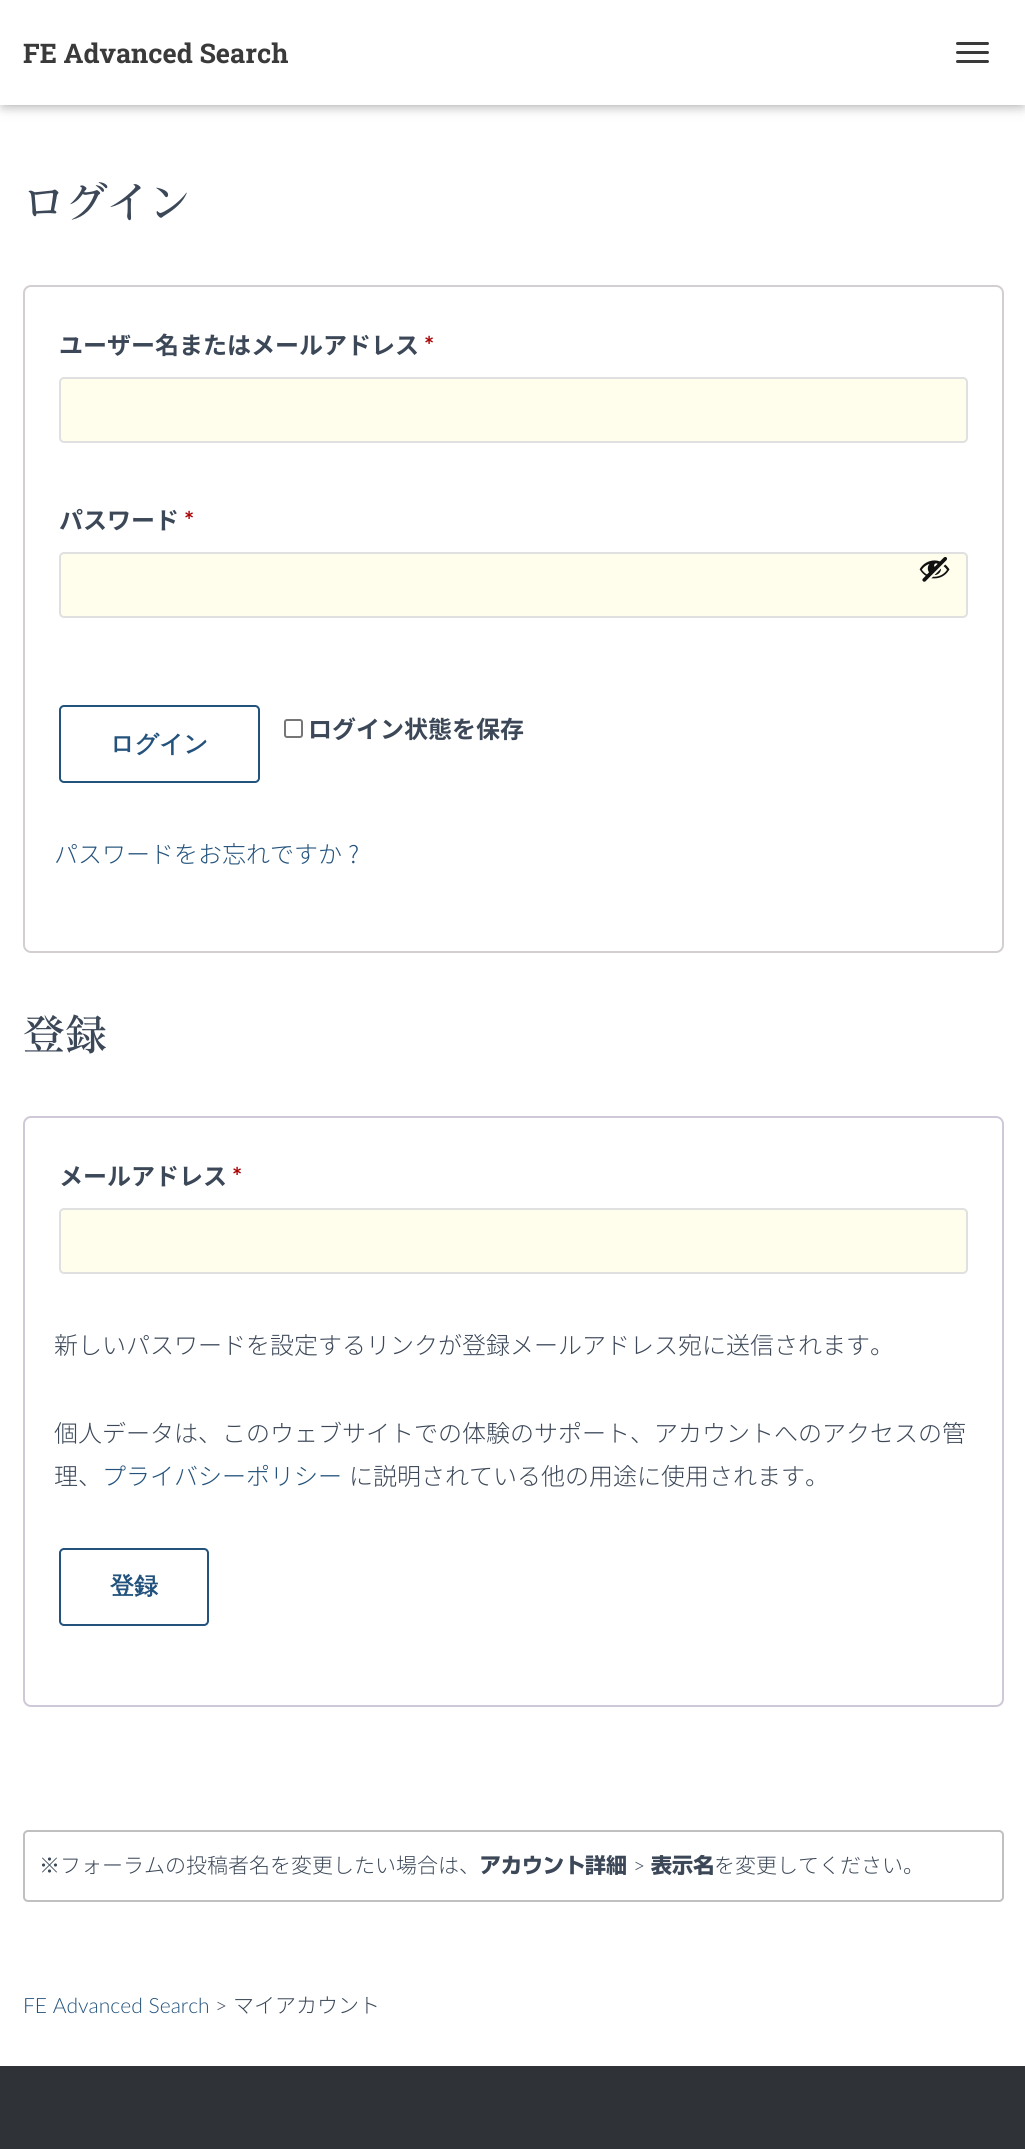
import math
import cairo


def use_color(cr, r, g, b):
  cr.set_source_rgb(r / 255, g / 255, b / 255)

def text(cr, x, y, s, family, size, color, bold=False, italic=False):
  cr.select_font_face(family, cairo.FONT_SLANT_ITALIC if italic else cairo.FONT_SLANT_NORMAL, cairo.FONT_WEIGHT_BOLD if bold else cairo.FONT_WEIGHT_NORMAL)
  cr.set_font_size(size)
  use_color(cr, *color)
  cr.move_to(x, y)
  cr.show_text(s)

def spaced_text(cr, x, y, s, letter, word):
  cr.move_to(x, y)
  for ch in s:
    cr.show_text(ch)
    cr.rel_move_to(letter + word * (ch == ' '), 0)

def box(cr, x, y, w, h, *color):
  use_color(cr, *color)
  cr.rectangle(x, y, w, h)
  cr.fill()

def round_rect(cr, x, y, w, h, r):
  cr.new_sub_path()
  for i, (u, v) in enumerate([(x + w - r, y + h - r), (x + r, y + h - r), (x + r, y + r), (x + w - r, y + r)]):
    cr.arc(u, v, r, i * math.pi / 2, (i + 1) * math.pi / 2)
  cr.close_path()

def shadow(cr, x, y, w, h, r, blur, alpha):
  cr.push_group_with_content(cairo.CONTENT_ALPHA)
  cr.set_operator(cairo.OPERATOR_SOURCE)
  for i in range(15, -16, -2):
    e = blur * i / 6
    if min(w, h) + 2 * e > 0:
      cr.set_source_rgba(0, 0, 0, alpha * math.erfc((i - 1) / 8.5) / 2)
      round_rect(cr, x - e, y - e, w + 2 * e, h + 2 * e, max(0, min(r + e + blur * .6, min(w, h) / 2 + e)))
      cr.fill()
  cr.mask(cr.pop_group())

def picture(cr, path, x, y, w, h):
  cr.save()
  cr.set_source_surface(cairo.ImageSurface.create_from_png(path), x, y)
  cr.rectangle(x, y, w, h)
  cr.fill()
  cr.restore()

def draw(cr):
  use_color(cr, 255, 255, 255)
  cr.paint()
  use_color(cr, 0, 0, 0)
  shadow(cr, 3, 9, 1020, 99, 0, 4, 0.1)
  shadow(cr, 0, 2, 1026, 105, 0, 7.5, 0.12)
  shadow(cr, 9, 11, 1008, 87, 0, 7.5, 0.42)
  box(cr, 0, 0, 1025, 105, 255, 255, 255)
  use_color(cr, 58, 58, 58)
  round_rect(cr, 956, 42, 33, 3, 1.5)
  cr.fill()
  round_rect(cr, 956, 51, 33, 3, 1.5)
  cr.fill()
  round_rect(cr, 956, 60, 33, 3, 1.5)
  cr.fill()
  round_rect(cr, 24, 286, 979, 666, 7)
  use_color(cr, 211, 206, 210)
  cr.stroke()
  use_color(cr, 255, 253, 236)
  round_rect(cr, 60, 378, 907, 64, 4)
  cr.fill_preserve()
  use_color(cr, 224, 224, 224)
  cr.stroke()
  use_color(cr, 255, 253, 236)
  round_rect(cr, 60, 553, 907, 64, 4)
  cr.fill_preserve()
  use_color(cr, 224, 224, 224)
  cr.stroke()
  picture(cr, "img_01.png", 919, 557, 31, 25)
  round_rect(cr, 285, 720, 17, 17, 2)
  use_color(cr, 118, 118, 118)
  cr.stroke()
  round_rect(cr, 60, 706, 199, 76, 4)
  use_color(cr, 35, 82, 124)
  cr.stroke()
  round_rect(cr, 24, 1117, 979, 589, 7)
  use_color(cr, 207, 200, 216)
  cr.stroke()
  use_color(cr, 255, 253, 236)
  round_rect(cr, 60, 1209, 907, 64, 4)
  cr.fill_preserve()
  use_color(cr, 224, 224, 224)
  cr.stroke()
  round_rect(cr, 60, 1549, 148, 76, 4)
  use_color(cr, 35, 82, 124)
  cr.stroke()
  round_rect(cr, 24, 1831, 979, 70, 4)
  use_color(cr, 192, 192, 192)
  cr.stroke()
  box(cr, 0, 2066, 1025, 83, 47, 51, 55)
  text(cr, 23, 63, "FE Advanced Search", "Roboto Slab", 27, (58, 58, 58), bold=True)
  text(cr, 23, 218, "ログイン", "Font", 42, (60, 72, 88))
  text(cr, 59, 354, "ユーザー名またはメールアドレス", "Noto Sans JP", 24, (60, 72, 88), bold=True)
  text(cr, 424, 354, "*", "Lato", 24, (170, 0, 0), bold=True)
  text(cr, 59, 529, "パスワード", "Noto Sans JP", 24, (60, 72, 88), bold=True)
  text(cr, 184, 529, "*", "Lato", 24, (170, 0, 0), bold=True)
  text(cr, 308, 738, "ログイン状態を保存", "Noto Sans JP", 24, (60, 72, 88), bold=True)
  text(cr, 110, 752, "ログイン", "WenQuanYi Zen Hei", 24, (35, 82, 124), bold=True)
  cr.select_font_face("Noto Sans JP Light")
  spaced_text(cr, 54, 863, "パスワードをお忘れですか ?", 0, 1)
  text(cr, 23, 1050, "登録", "Font", 42, (60, 72, 88))
  text(cr, 59, 1185, "メールアドレス", "Noto Sans JP", 24, (60, 72, 88), bold=True)
  text(cr, 232, 1185, "*", "Lato", 24, (170, 0, 0), bold=True)
  text(cr, 54, 1354, "新しいパスワードを設定するリンクが登録メールアドレス宛に送信されます。", "Noto Sans JP Light", 24, (60, 72, 88))
  text(cr, 54, 1442, "個人データは、このウェブサイトでの体験のサポート、アカウントへのアクセスの管", "Noto Sans JP Light", 24, (60, 72, 88))
  text(cr, 54, 1485, "理、", "Noto Sans JP Light", 24, (60, 72, 88))
  text(cr, 102, 1485, "プライバシーポリシー", "Noto Sans JP Light", 24, (35, 82, 124))
  text(cr, 349, 1485, "に説明されている他の用途に使用されます。", "Noto Sans JP Light", 24, (60, 72, 88))
  text(cr, 110, 1594, "登録", "WenQuanYi Zen Hei", 24, (35, 82, 124), bold=True)
  text(cr, 39, 1873, "※フォーラムの投稿者名を変更したい場合は、", "Noto Sans JP Light", 21, (60, 72, 88))
  text(cr, 480, 1873, "アカウント詳細", "Font", 21, (60, 72, 88), bold=True)
  text(cr, 633, 1873, ">", "Lato Light", 21, (60, 72, 88))
  text(cr, 651, 1873, "表示名", "Font", 21, (60, 72, 88), bold=True)
  text(cr, 714, 1873, "を変更してください。", "Noto Sans JP Light", 21, (60, 72, 88))
  text(cr, 23, 2013, "FE Advanced Search", "Lato Light", 21, (35, 82, 124))
  text(cr, 215, 2013, ">", "Lato Light", 21, (60, 72, 88))
  text(cr, 233, 2013, "マイアカウント", "Noto Sans JP Light", 21, (60, 72, 88))


surface = cairo.ImageSurface(cairo.FORMAT_RGB24, 1025, 2149)
cr = cairo.Context(surface)
options = cairo.FontOptions()
options.set_hint_metrics(cairo.HINT_METRICS_OFF)
options.set_hint_style(cairo.HINT_STYLE_NONE)
cr.set_font_options(options)
cr.set_miter_limit(4)
draw(cr)
surface.write_to_png("out.png")
